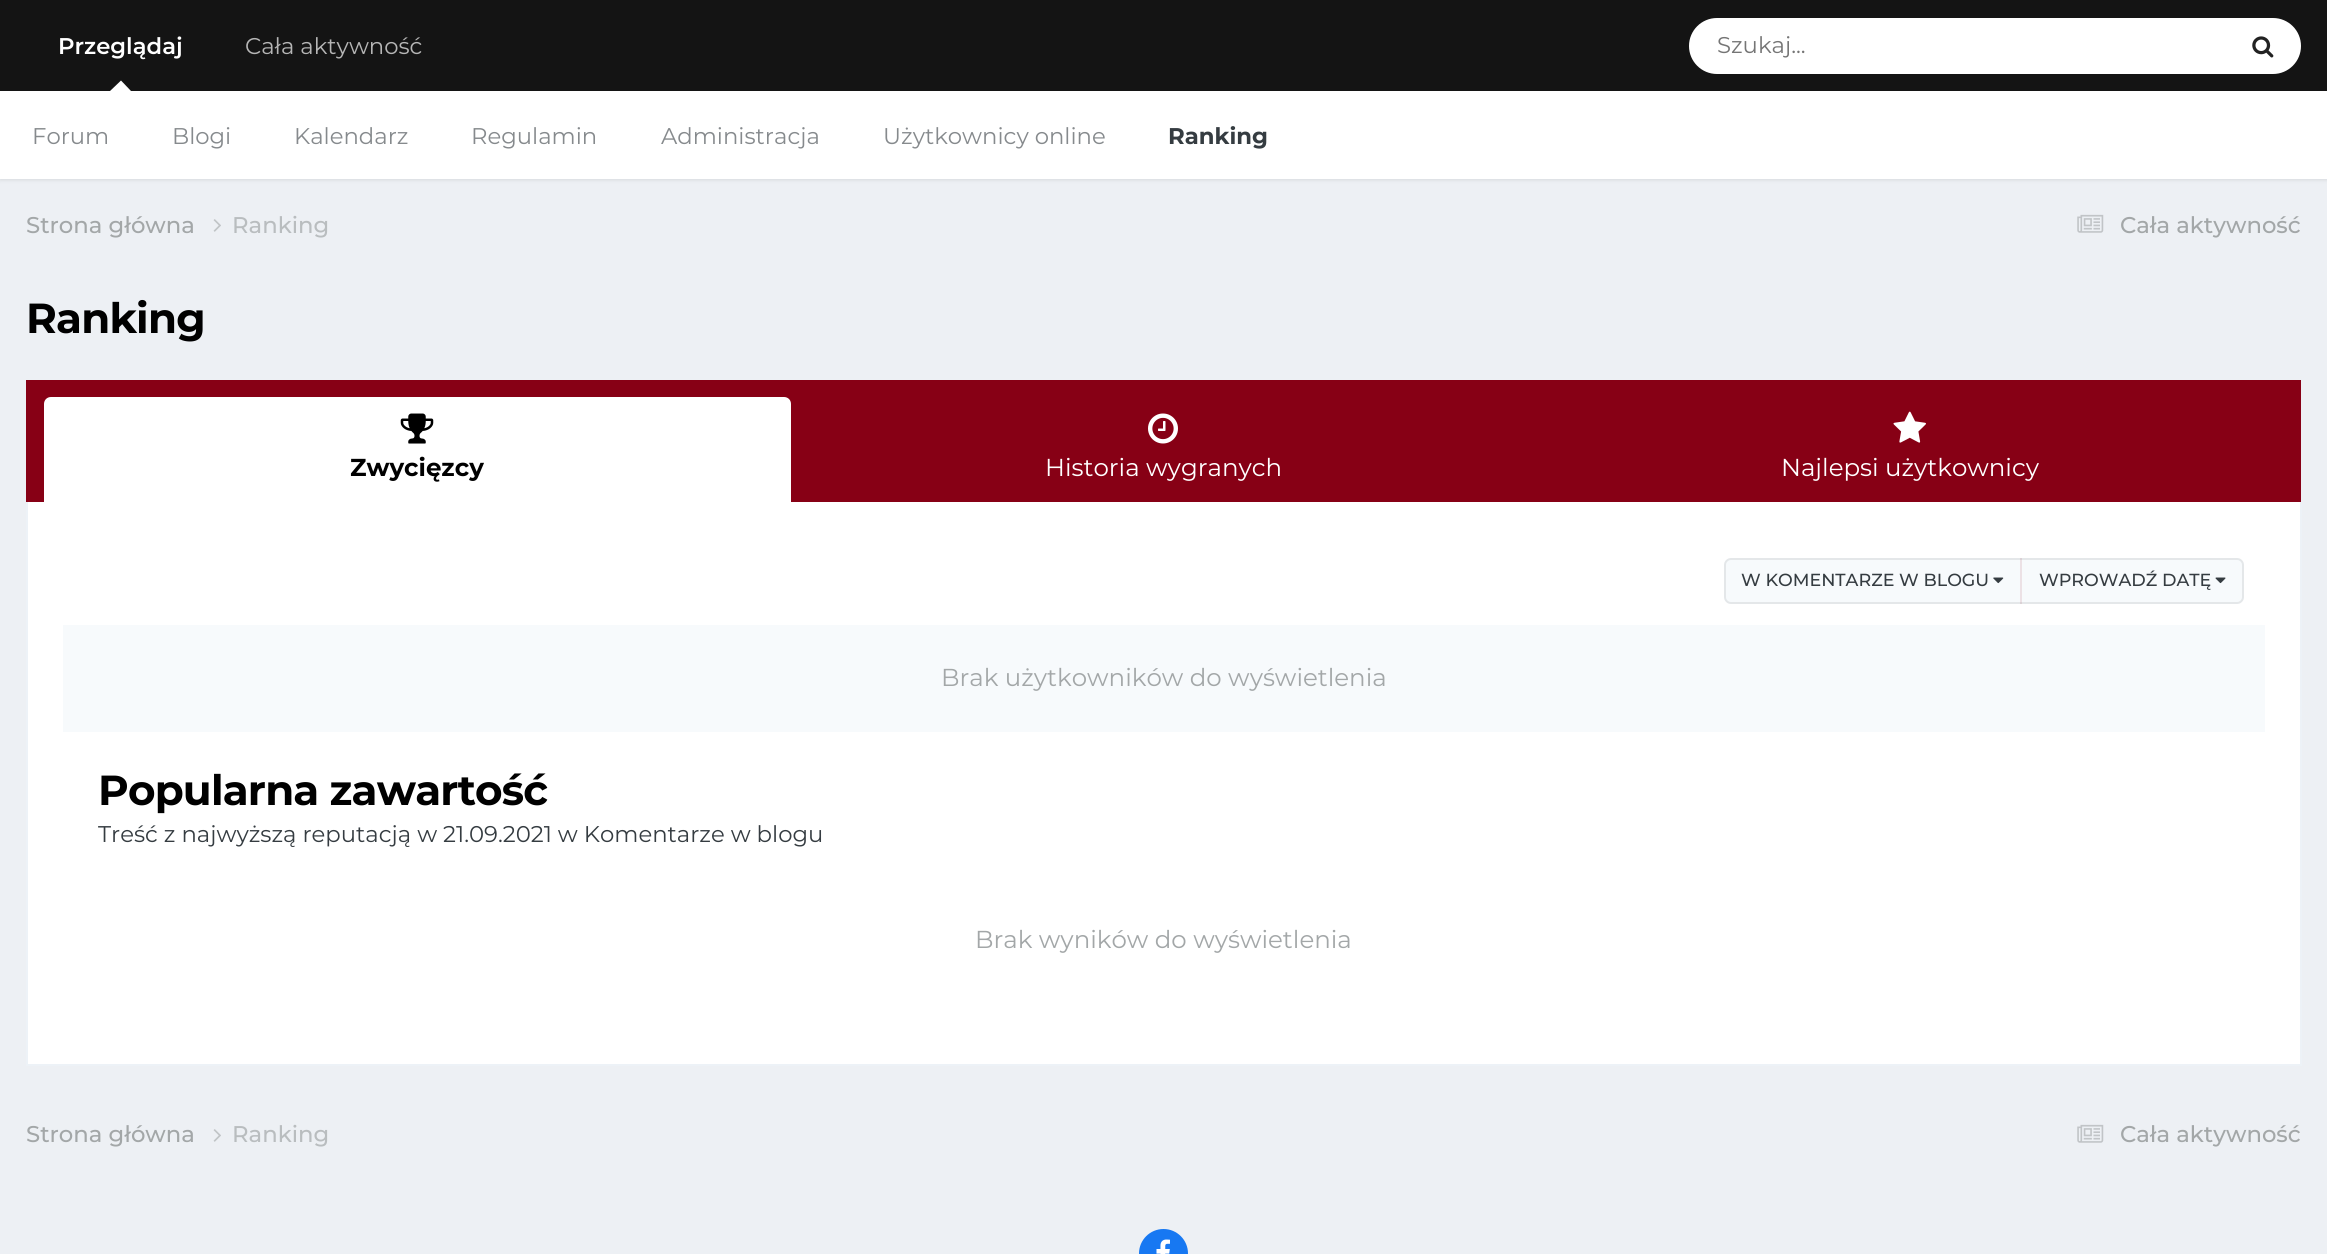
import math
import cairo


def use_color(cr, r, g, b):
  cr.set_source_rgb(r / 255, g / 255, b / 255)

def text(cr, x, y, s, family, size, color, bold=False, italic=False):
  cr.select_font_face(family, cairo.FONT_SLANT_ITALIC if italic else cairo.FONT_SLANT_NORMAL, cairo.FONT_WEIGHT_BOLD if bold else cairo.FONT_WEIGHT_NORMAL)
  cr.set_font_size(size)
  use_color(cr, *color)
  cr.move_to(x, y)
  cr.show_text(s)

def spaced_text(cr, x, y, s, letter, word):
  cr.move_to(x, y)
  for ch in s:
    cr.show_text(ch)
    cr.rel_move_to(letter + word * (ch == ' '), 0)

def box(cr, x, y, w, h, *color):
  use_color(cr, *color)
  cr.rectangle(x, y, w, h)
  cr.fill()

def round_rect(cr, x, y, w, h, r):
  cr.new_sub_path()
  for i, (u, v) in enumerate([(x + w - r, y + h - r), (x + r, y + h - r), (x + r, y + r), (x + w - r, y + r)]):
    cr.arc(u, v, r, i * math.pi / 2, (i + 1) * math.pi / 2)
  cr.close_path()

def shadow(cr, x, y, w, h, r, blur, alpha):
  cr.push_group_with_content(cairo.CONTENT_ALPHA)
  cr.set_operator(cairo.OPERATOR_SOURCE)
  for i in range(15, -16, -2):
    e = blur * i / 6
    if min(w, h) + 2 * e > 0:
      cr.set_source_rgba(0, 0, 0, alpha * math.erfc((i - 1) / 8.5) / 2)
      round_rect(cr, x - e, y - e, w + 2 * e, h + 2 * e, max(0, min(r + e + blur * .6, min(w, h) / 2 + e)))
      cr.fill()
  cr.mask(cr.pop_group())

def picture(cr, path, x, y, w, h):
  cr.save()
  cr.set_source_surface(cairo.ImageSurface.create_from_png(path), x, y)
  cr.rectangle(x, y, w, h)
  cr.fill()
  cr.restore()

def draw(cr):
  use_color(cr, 237, 240, 244)
  cr.paint()
  box(cr, 0, 0, 2327, 91, 20, 20, 20)
  use_color(cr, 0, 0, 0)
  shadow(cr, 0, 93, 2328, 87, 0, 2, 0.1)
  use_color(cr, 255, 255, 255)
  cr.new_path()
  cr.move_to(131, 91)
  cr.line_to(110, 91)
  cr.line_to(121, 80.5)
  cr.close_path()
  cr.fill()
  round_rect(cr, 1689, 18, 612, 56, 28)
  cr.fill()
  picture(cr, "img_01.png", 2252, 36, 22, 22)
  box(cr, 0, 91, 2327, 88, 255, 255, 255)
  picture(cr, "img_02.png", 213, 219, 8, 13)
  picture(cr, "img_03.png", 2077, 214, 27, 19)
  box(cr, 26, 380, 2275, 122, 135, 0, 21)
  use_color(cr, 255, 255, 255)
  cr.new_path()
  cr.move_to(51, 397)
  cr.line_to(784, 397)
  cr.curve_to(788, 397, 791, 400, 791, 404)
  cr.line_to(791, 502)
  cr.line_to(44, 502)
  cr.line_to(44, 404)
  cr.curve_to(44, 400, 47, 397, 51, 397)
  cr.close_path()
  cr.fill()
  picture(cr, "img_04.png", 400, 413, 34, 31)
  picture(cr, "img_05.png", 1148, 413, 30, 31)
  picture(cr, "img_06.png", 1893, 411, 33, 32)
  box(cr, 28, 502, 2272, 562, 255, 255, 255)
  box(cr, 2300, 502, 2, 564, 237, 242, 247)
  box(cr, 26, 1064, 2275, 2, 237, 242, 247)
  box(cr, 26, 502, 2, 564, 237, 242, 247)
  use_color(cr, 247, 250, 252)
  cr.new_path()
  cr.move_to(1731, 558)
  cr.line_to(2021, 558)
  cr.line_to(2021, 604)
  cr.line_to(1731, 604)
  cr.curve_to(1727, 604, 1724, 601, 1724, 597)
  cr.line_to(1724, 565)
  cr.curve_to(1724, 561, 1727, 558, 1731, 558)
  cr.close_path()
  cr.fill()
  picture(cr, "img_07.png", 1993, 577, 11, 7)
  cr.new_path()
  cr.move_to(2021, 558)
  cr.line_to(2237, 558)
  cr.curve_to(2241, 558, 2244, 561, 2244, 565)
  cr.line_to(2244, 597)
  cr.curve_to(2244, 601, 2241, 604, 2237, 604)
  cr.line_to(2021, 604)
  cr.close_path()
  cr.fill()
  box(cr, 2020, 558, 2, 46, 236, 225, 229)
  picture(cr, "img_08.png", 2215, 577, 11, 7)
  round_rect(cr, 1725, 559, 518, 44, 6)
  cr.set_source_rgba(0.208, 0.235, 0.255, 0.1)
  cr.stroke()
  box(cr, 63, 625, 2202, 107, 247, 250, 252)
  picture(cr, "img_02.png", 213, 1129, 8, 13)
  picture(cr, "img_03.png", 2077, 1124, 27, 19)
  use_color(cr, 23, 120, 242)
  cr.arc(1163.5, 1253.5, 24.5, 0, 2 * math.pi)
  cr.fill()
  picture(cr, "img_09.png", 1156, 1239, 14, 15)
  text(cr, 58, 54, "Przeglądaj", "Montserrat SemiBold", 22.75, (255, 255, 255))
  text(cr, 32, 144, "Forum", "Montserrat", 22.75, (134, 138, 141))
  text(cr, 172, 144, "Blogi", "Montserrat", 22.75, (134, 138, 141))
  text(cr, 294, 144, "Kalendarz", "Montserrat", 22.75, (134, 138, 141))
  text(cr, 471, 144, "Regulamin", "Montserrat", 22.75, (134, 138, 141))
  text(cr, 661, 144, "Administracja", "Montserrat", 22.75, (134, 138, 141))
  text(cr, 883, 144, "Użytkownicy online", "Montserrat", 22.75, (134, 138, 141))
  text(cr, 1168, 144, "Ranking", "Montserrat", 22.75, (53, 60, 65), bold=True)
  text(cr, 245, 54, "Cała aktywność", "Montserrat", 22.75, (182, 182, 182))
  text(cr, 1717, 53, "Szukaj...", "Montserrat", 22.75, (117, 117, 117))
  text(cr, 26, 233, "Strona główna", "Montserrat Medium", 22.75, (163, 167, 168))
  text(cr, 232, 233, "Ranking", "Montserrat Medium", 22.75, (185, 189, 191))
  text(cr, 2120, 233, "Cała aktywność", "Montserrat Medium", 22.75, (163, 167, 168))
  cr.select_font_face("Montserrat", cairo.FONT_SLANT_NORMAL, cairo.FONT_WEIGHT_BOLD)
  cr.set_font_size(42)
  use_color(cr, 0, 0, 0)
  spaced_text(cr, 26, 333, "Ranking", -0.8, 0)
  text(cr, 350, 476, "Zwycięzcy", "Montserrat", 24.5, (0, 0, 0), bold=True)
  text(cr, 1045, 476, "Historia wygranych", "Montserrat", 24.5, (255, 255, 255))
  text(cr, 1781, 476, "Najlepsi użytkownicy", "Montserrat", 24.5, (255, 255, 255))
  text(cr, 1741, 586, "W KOMENTARZE W BLOGU", "Montserrat Medium", 17.5, (53, 60, 65))
  text(cr, 2039, 586, "WPROWADŹ DATĘ", "Montserrat Medium", 17.5, (53, 60, 65))
  text(cr, 941, 686, "Brak użytkowników do wyświetlenia", "Montserrat", 24.5, (163, 167, 168))
  cr.select_font_face("Montserrat", cairo.FONT_SLANT_NORMAL, cairo.FONT_WEIGHT_BOLD)
  cr.set_font_size(42)
  use_color(cr, 0, 0, 0)
  spaced_text(cr, 98, 805, "Popularna zawartość", -0.8, 0)
  text(cr, 98, 842, "Treść z najwyższą reputacją w 21.09.2021 w Komentarze w blogu", "Montserrat", 22.75, (53, 60, 65))
  text(cr, 975, 948, "Brak wyników do wyświetlenia", "Montserrat", 24.5, (163, 167, 168))
  text(cr, 26, 1142, "Strona główna", "Montserrat Medium", 22.75, (163, 167, 168))
  text(cr, 232, 1142, "Ranking", "Montserrat Medium", 22.75, (185, 189, 191))
  text(cr, 2120, 1142, "Cała aktywność", "Montserrat Medium", 22.75, (163, 167, 168))


surface = cairo.ImageSurface(cairo.FORMAT_RGB24, 2327, 1254)
cr = cairo.Context(surface)
options = cairo.FontOptions()
options.set_hint_metrics(cairo.HINT_METRICS_OFF)
options.set_hint_style(cairo.HINT_STYLE_NONE)
cr.set_font_options(options)
cr.set_miter_limit(4)
draw(cr)
surface.write_to_png("out.png")
